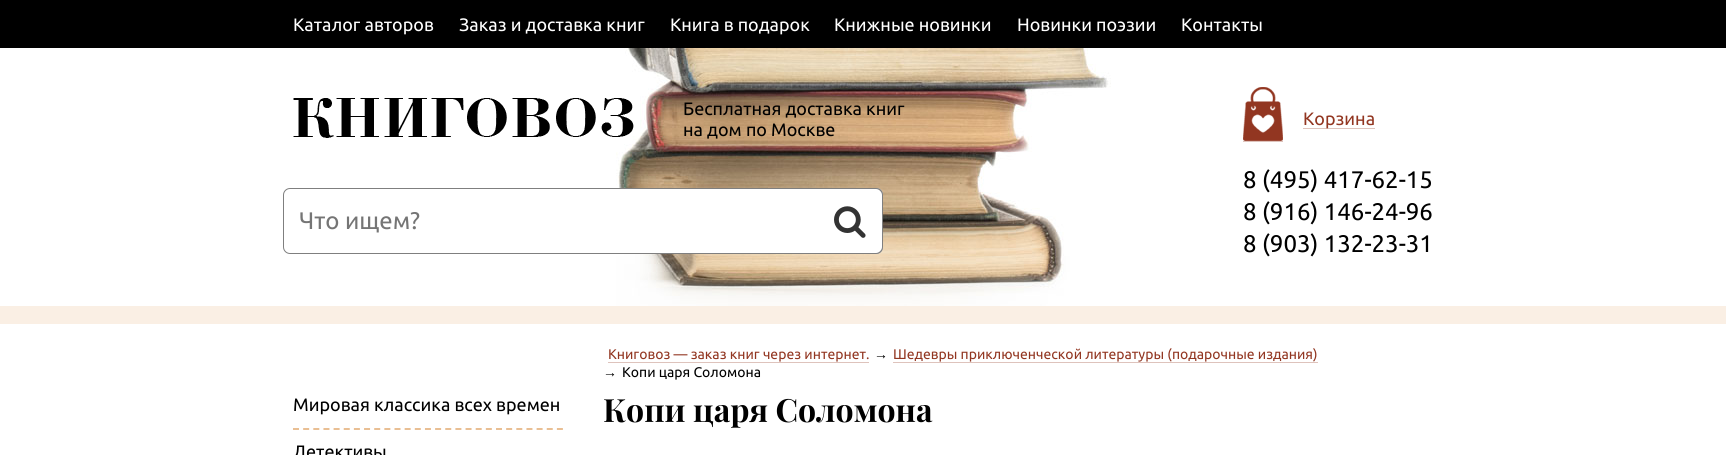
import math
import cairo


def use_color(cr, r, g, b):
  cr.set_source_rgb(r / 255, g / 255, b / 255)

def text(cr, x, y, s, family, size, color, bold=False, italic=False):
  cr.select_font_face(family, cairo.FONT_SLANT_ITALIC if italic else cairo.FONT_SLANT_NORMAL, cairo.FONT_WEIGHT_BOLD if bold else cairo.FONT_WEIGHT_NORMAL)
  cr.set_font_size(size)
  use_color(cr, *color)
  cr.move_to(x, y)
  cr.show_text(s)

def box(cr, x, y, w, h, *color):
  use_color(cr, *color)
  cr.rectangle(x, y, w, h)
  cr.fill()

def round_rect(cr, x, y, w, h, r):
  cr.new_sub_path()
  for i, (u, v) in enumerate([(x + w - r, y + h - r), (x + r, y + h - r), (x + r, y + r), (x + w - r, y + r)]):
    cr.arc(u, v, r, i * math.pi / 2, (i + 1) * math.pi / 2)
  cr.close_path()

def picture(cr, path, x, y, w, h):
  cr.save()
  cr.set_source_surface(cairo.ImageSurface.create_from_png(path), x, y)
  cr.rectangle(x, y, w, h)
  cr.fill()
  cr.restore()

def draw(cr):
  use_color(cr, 255, 255, 255)
  cr.paint()
  box(cr, 0, 0, 1726, 48, 0, 0, 0)
  picture(cr, "img_01.png", 616, 48, 495, 258)
  box(cr, 0, 306, 1726, 18, 250, 239, 228)
  picture(cr, "img_02.png", 293, 98, 341, 40)
  box(cr, 1243, 141, 40, 1, 222, 195, 188)
  box(cr, 1303, 128, 72, 1, 222, 195, 188)
  picture(cr, "img_03.png", 1243, 87, 40, 54)
  use_color(cr, 255, 255, 255)
  round_rect(cr, 283, 188, 600, 66, 7)
  cr.fill()
  round_rect(cr, 283.5, 188.5, 599, 65, 6.5)
  cr.set_source_rgba(0, 0, 0, 0.5)
  cr.set_line_width(1)
  cr.stroke()
  use_color(cr, 255, 255, 255)
  cr.new_path()
  cr.move_to(817, 188)
  cr.line_to(876, 188)
  cr.curve_to(880, 188, 883, 191, 883, 195)
  cr.line_to(883, 247)
  cr.curve_to(883, 251, 880, 254, 876, 254)
  cr.line_to(817, 254)
  cr.close_path()
  cr.fill()
  cr.set_source_rgba(0, 0, 0, 0.5)
  cr.set_fill_rule(cairo.FILL_RULE_EVEN_ODD)
  cr.new_path()
  cr.move_to(817, 188)
  cr.line_to(876, 188)
  cr.curve_to(880, 188, 883, 191, 883, 195)
  cr.line_to(883, 247)
  cr.curve_to(883, 251, 880, 254, 876, 254)
  cr.line_to(817, 254)
  cr.close_path()
  cr.move_to(817, 189)
  cr.line_to(876, 189)
  cr.curve_to(879, 189, 882, 192, 882, 195)
  cr.line_to(882, 247)
  cr.curve_to(882, 250, 879, 253, 876, 253)
  cr.line_to(817, 253)
  cr.close_path()
  cr.fill()
  picture(cr, "img_04.png", 834, 206, 32, 32)
  box(cr, 608, 362, 261, 1, 222, 195, 188)
  box(cr, 893, 362, 425, 1, 222, 195, 188)
  cr.new_path()
  cr.move_to(293, 429)
  cr.line_to(563, 429)
  use_color(cr, 233, 191, 148)
  cr.set_line_width(2)
  cr.set_dash([6, 4.15])
  cr.stroke()
  text(cr, 293, 31, "Каталог авторов", "Ubuntu", 18, (255, 255, 255))
  text(cr, 459, 31, "Заказ и доставка книг", "Ubuntu", 18, (255, 255, 255))
  text(cr, 670, 31, "Книга в подарок", "Ubuntu", 18, (255, 255, 255))
  text(cr, 834, 31, "Книжные новинки", "Ubuntu", 18, (255, 255, 255))
  text(cr, 1017, 31, "Новинки поэзии", "Ubuntu", 18, (255, 255, 255))
  text(cr, 1181, 31, "Контакты", "Ubuntu", 18, (255, 255, 255))
  text(cr, 683, 115, "Бесплатная доставка книг", "Ubuntu", 18, (0, 0, 0))
  text(cr, 683, 136, "на дом по Москве", "Ubuntu", 18, (0, 0, 0))
  text(cr, 1303, 125, "Корзина", "Ubuntu", 18, (146, 54, 33))
  text(cr, 1243, 188, "8 (495) 417-62-15", "Ubuntu", 24, (0, 0, 0))
  text(cr, 1243, 220, "8 (916) 146-24-96", "Ubuntu", 24, (0, 0, 0))
  text(cr, 1243, 252, "8 (903) 132-23-31", "Ubuntu", 24, (0, 0, 0))
  text(cr, 299, 229, "Что ищем?", "Ubuntu", 24, (117, 117, 117))
  text(cr, 608, 359, "Книговоз — заказ книг через интернет.", "Ubuntu", 14, (146, 54, 33))
  text(cr, 874, 359, "→", "Liberation Sans", 14, (0, 0, 0))
  text(cr, 893, 359, "Шедевры приключенческой литературы (подарочные издания)", "Ubuntu", 14, (146, 54, 33))
  text(cr, 603, 377, "→", "Liberation Sans", 14, (0, 0, 0))
  text(cr, 622, 377, "Копи царя Соломона", "Ubuntu", 14, (0, 0, 0))
  text(cr, 293, 411, "Мировая классика всех времен", "Ubuntu", 18, (0, 0, 0))
  text(cr, 293, 458, "Детективы", "Ubuntu", 18, (0, 0, 0))
  text(cr, 603, 422, "Копи царя Соломона", "Playfair Display", 32, (0, 0, 0), bold=True)


surface = cairo.ImageSurface(cairo.FORMAT_RGB24, 1726, 455)
cr = cairo.Context(surface)
options = cairo.FontOptions()
options.set_hint_metrics(cairo.HINT_METRICS_OFF)
options.set_hint_style(cairo.HINT_STYLE_NONE)
cr.set_font_options(options)
cr.set_miter_limit(4)
draw(cr)
surface.write_to_png("out.png")
